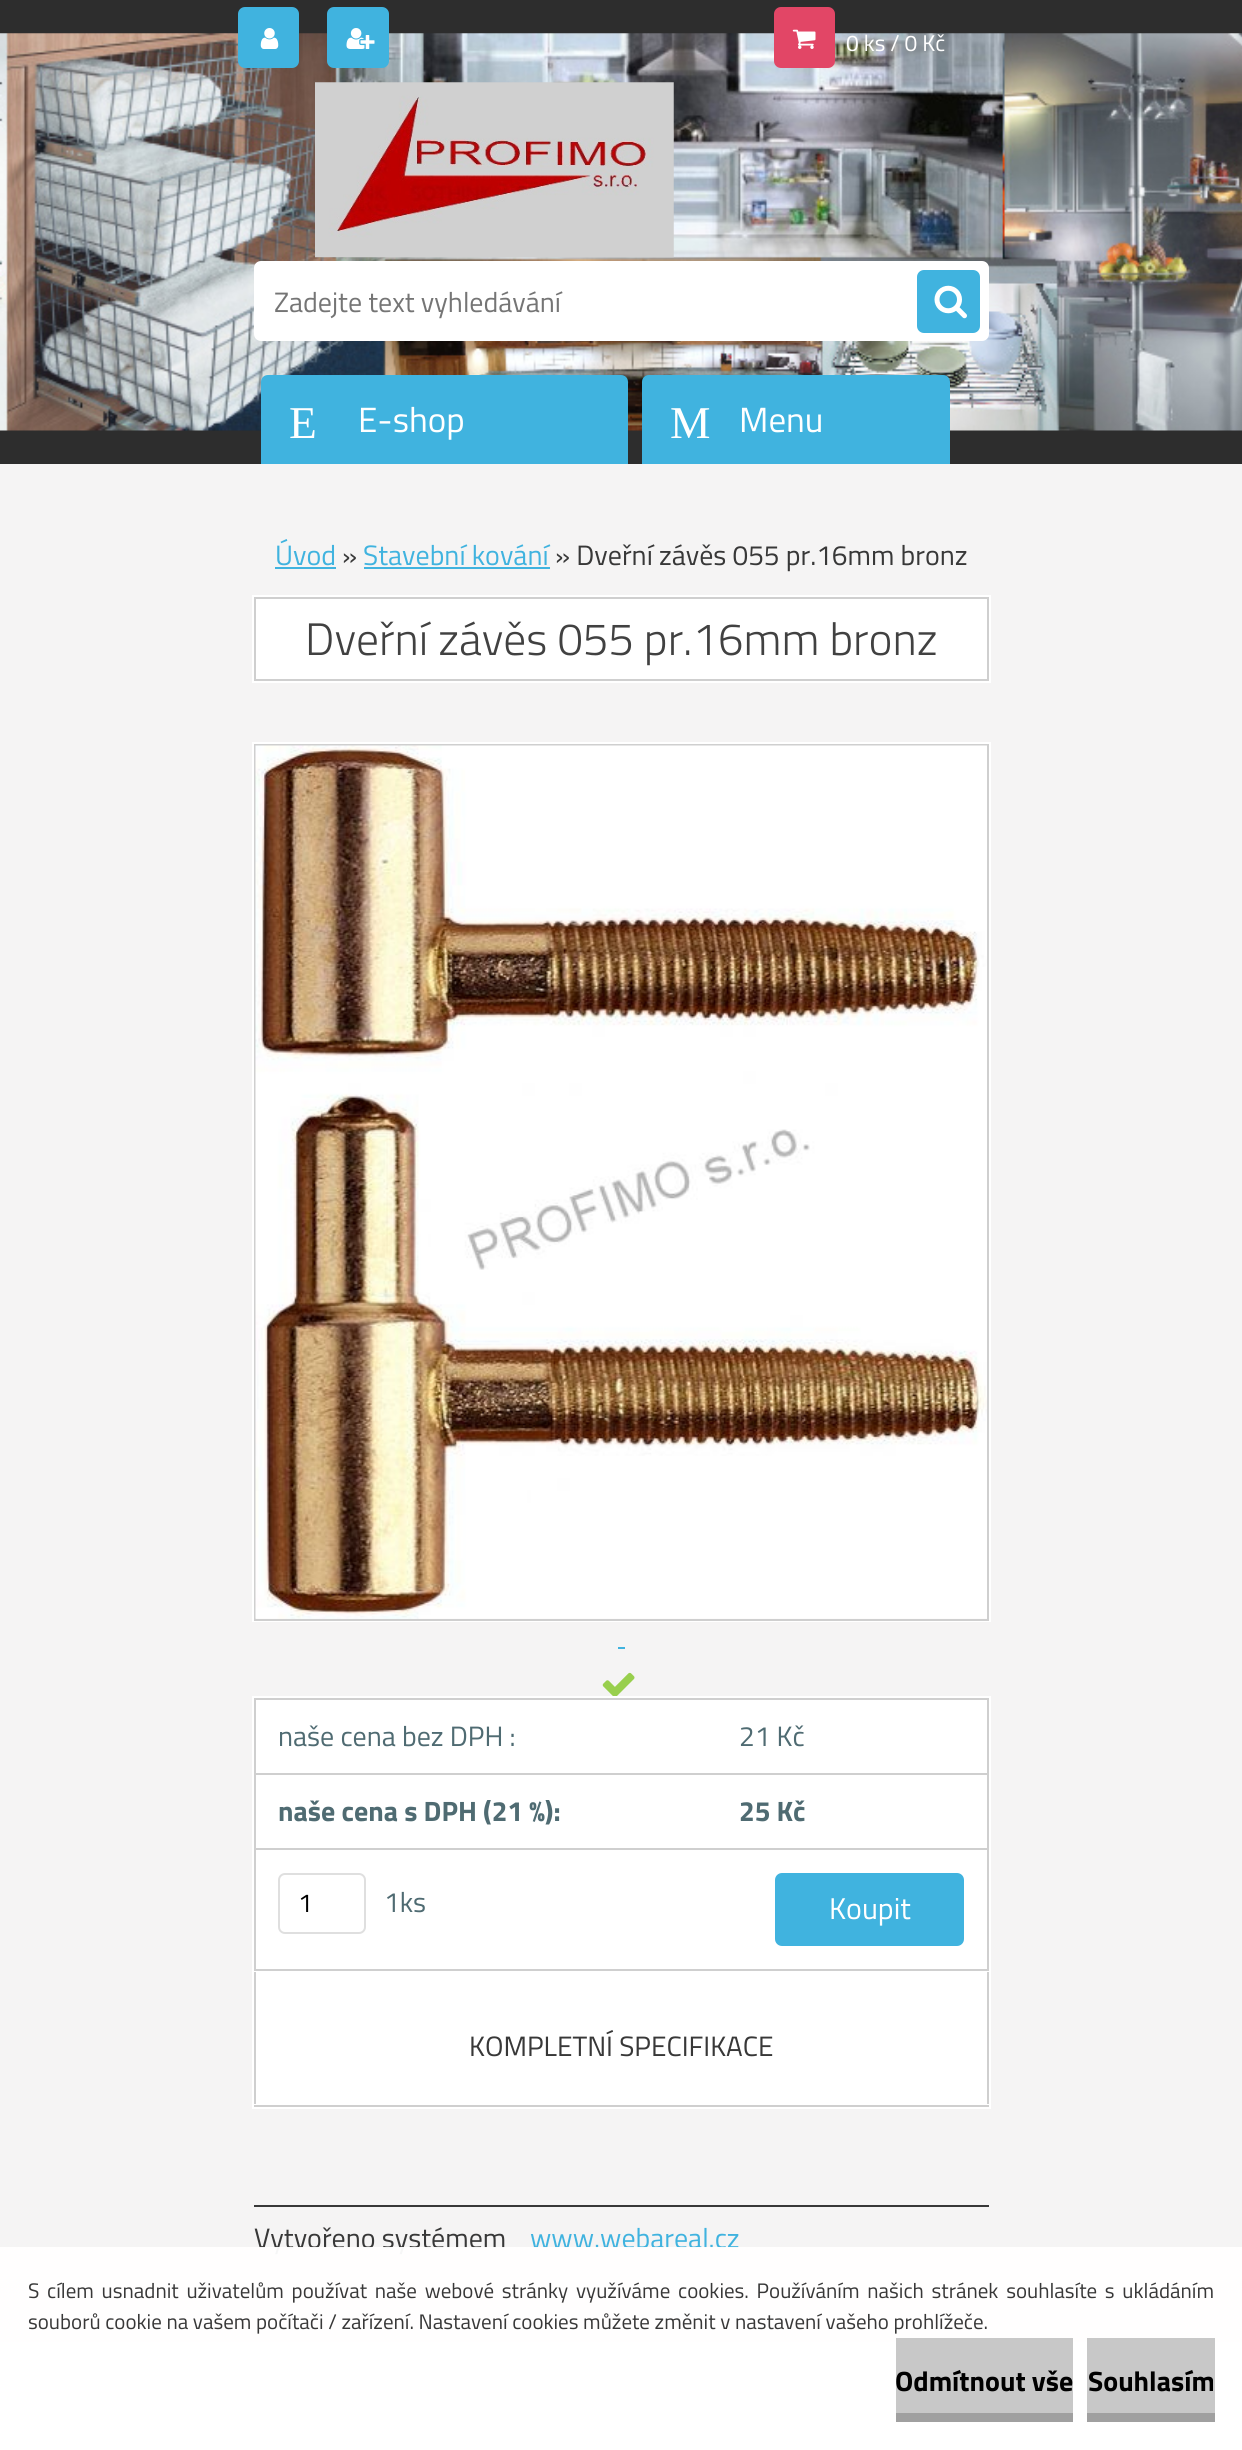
import math
import cairo


def use_color(cr, r, g, b):
  cr.set_source_rgb(r / 255, g / 255, b / 255)

def text(cr, x, y, s, family, size, color, bold=False, italic=False):
  cr.select_font_face(family, cairo.FONT_SLANT_ITALIC if italic else cairo.FONT_SLANT_NORMAL, cairo.FONT_WEIGHT_BOLD if bold else cairo.FONT_WEIGHT_NORMAL)
  cr.set_font_size(size)
  use_color(cr, *color)
  cr.move_to(x, y)
  cr.show_text(s)

def spaced_text(cr, x, y, s, letter, word):
  cr.move_to(x, y)
  for ch in s:
    cr.show_text(ch)
    cr.rel_move_to(letter + word * (ch == ' '), 0)

def box(cr, x, y, w, h, *color):
  use_color(cr, *color)
  cr.rectangle(x, y, w, h)
  cr.fill()

def round_rect(cr, x, y, w, h, r):
  cr.new_sub_path()
  for i, (u, v) in enumerate([(x + w - r, y + h - r), (x + r, y + h - r), (x + r, y + r), (x + w - r, y + r)]):
    cr.arc(u, v, r, i * math.pi / 2, (i + 1) * math.pi / 2)
  cr.close_path()

def picture(cr, path, x, y, w, h):
  cr.save()
  cr.set_source_surface(cairo.ImageSurface.create_from_png(path), x, y)
  cr.rectangle(x, y, w, h)
  cr.fill()
  cr.restore()

def draw(cr):
  use_color(cr, 255, 255, 255)
  cr.paint()
  box(cr, 0, 464, 1242, 1878, 245, 244, 244)
  box(cr, 0, 0, 1242, 464, 45, 45, 45)
  picture(cr, "img_06.png", 0, 33, 1242, 398)
  use_color(cr, 64, 179, 223)
  round_rect(cr, 238, 7, 61, 61, 7)
  cr.fill()
  picture(cr, "img_01.png", 260, 28, 19, 21)
  round_rect(cr, 327, 7, 62, 61, 7)
  cr.fill()
  picture(cr, "img_02.png", 346, 28, 29, 21)
  use_color(cr, 226, 70, 102)
  round_rect(cr, 774, 7, 61, 61, 7)
  cr.fill()
  picture(cr, "img_03.png", 792, 29, 24, 20)
  use_color(cr, 64, 179, 223)
  cr.new_path()
  cr.move_to(268, 375)
  cr.line_to(621, 375)
  cr.curve_to(625, 375, 628, 378, 628, 382)
  cr.line_to(628, 464)
  cr.line_to(261, 464)
  cr.line_to(261, 382)
  cr.curve_to(261, 378, 264, 375, 268, 375)
  cr.close_path()
  cr.fill()
  cr.new_path()
  cr.move_to(649, 375)
  cr.line_to(943, 375)
  cr.curve_to(947, 375, 950, 378, 950, 382)
  cr.line_to(950, 464)
  cr.line_to(642, 464)
  cr.line_to(642, 382)
  cr.curve_to(642, 378, 645, 375, 649, 375)
  cr.close_path()
  cr.fill()
  box(cr, 275, 567, 61, 2, 64, 179, 223)
  box(cr, 364, 567, 186, 2, 64, 179, 223)
  cr.rectangle(253, 596, 737, 86)
  use_color(cr, 255, 255, 255)
  cr.stroke()
  cr.rectangle(255, 598, 733, 82)
  cr.fill_preserve()
  use_color(cr, 207, 207, 207)
  cr.stroke()
  cr.rectangle(253, 743, 737, 878)
  use_color(cr, 255, 255, 255)
  cr.stroke()
  cr.rectangle(255, 745, 733, 875)
  use_color(cr, 207, 207, 207)
  cr.stroke()
  picture(cr, "img_04.png", 255, 745, 732, 874)
  box(cr, 618, 1647, 7, 2, 64, 179, 223)
  picture(cr, "img_05.png", 602, 1672, 33, 24)
  cr.rectangle(253, 1970, 737, 136)
  use_color(cr, 255, 255, 255)
  cr.stroke()
  box(cr, 987, 1971, 2, 134, 207, 207, 207)
  box(cr, 254, 1971, 2, 134, 207, 207, 207)
  cr.rectangle(253, 1697, 737, 274)
  use_color(cr, 255, 255, 255)
  cr.stroke()
  box(cr, 256, 1700, 731, 269, 255, 255, 255)
  box(cr, 254, 1698, 735, 2, 207, 207, 207)
  box(cr, 987, 1698, 2, 273, 207, 207, 207)
  box(cr, 254, 1969, 735, 2, 207, 207, 207)
  box(cr, 254, 1698, 2, 273, 207, 207, 207)
  box(cr, 254, 1773, 735, 2, 207, 207, 207)
  box(cr, 254, 1848, 735, 2, 207, 207, 207)
  round_rect(cr, 279, 1874, 86, 59, 6)
  use_color(cr, 223, 223, 223)
  cr.stroke()
  use_color(cr, 64, 179, 223)
  round_rect(cr, 775, 1873, 189, 73, 7)
  cr.fill()
  box(cr, 256, 1972, 731, 132, 255, 255, 255)
  cr.rectangle(253, 2105, 737, 3)
  cr.stroke()
  box(cr, 254, 2105, 735, 2, 207, 207, 207)
  box(cr, 254, 2205, 735, 2, 56, 56, 56)
  picture(cr, "img_07.png", 315, 82, 359, 176)
  use_color(cr, 255, 255, 255)
  round_rect(cr, 254, 261, 735, 80, 7)
  cr.fill()
  use_color(cr, 64, 179, 223)
  round_rect(cr, 917, 270, 63, 63, 7)
  cr.fill()
  picture(cr, "img_08.png", 934, 285, 33, 34)
  box(cr, 896, 2413, 177, 9, 160, 160, 160)
  box(cr, 1087, 2413, 128, 9, 160, 160, 160)
  text(cr, 846, 51, "0 ks / 0 Kč", "Titillium Web", 22.75, (255, 255, 255))
  text(cr, 289, 438, "E", "Liberation Serif", 45.5, (255, 255, 255))
  text(cr, 358, 432, "E-shop", "Titillium Web", 35, (255, 255, 255))
  text(cr, 670, 438, "M", "Liberation Serif", 45.5, (255, 255, 255))
  text(cr, 739, 432, "Menu", "Titillium Web", 35, (255, 255, 255))
  text(cr, 275, 565, "Úvod", "Titillium Web", 28, (64, 179, 223))
  text(cr, 342, 565, "»", "Titillium Web", 28, (56, 56, 56))
  text(cr, 363, 565, "Stavební kování", "Titillium Web", 28, (64, 179, 223))
  text(cr, 555, 565, "» Dveřní závěs 055 pr.16mm bronz", "Titillium Web", 28, (56, 56, 56))
  text(cr, 305, 655, "Dveřní závěs 055 pr.16mm bronz", "Titillium Web Light", 45.5, (65, 65, 65))
  text(cr, 278, 1746, "naše cena bez DPH :", "Titillium Web", 28, (79, 107, 114))
  text(cr, 739, 1746, "21 Kč", "Titillium Web", 28, (79, 107, 114))
  text(cr, 278, 1821, "naše cena s DPH (21 %):", "Titillium Web", 28, (79, 107, 114), bold=True)
  text(cr, 739, 1821, "25 Kč", "Titillium Web", 28, (79, 107, 114), bold=True)
  text(cr, 298, 1912, "1", "Titillium Web", 26, (0, 0, 0))
  text(cr, 384, 1912, "1ks", "Titillium Web", 28, (79, 107, 114))
  text(cr, 829, 1919, "Koupit", "Titillium Web", 30, (255, 255, 255))
  text(cr, 469, 2056, "KOMPLETNÍ SPECIFIKACE", "Titillium Web", 28, (56, 56, 56))
  text(cr, 254, 2248, "Vytvořeno systémem", "Titillium Web", 28, (56, 56, 56))
  text(cr, 530, 2248, "www.webareal.cz", "Titillium Web", 28, (64, 179, 223))
  text(cr, 274, 312, "Zadejte text vyhledávání", "Titillium Web", 28, (117, 117, 117))
  cr.set_source_rgba(1, 1, 1, 0.95)
  cr.rectangle(0, 2247, 1242, 95)
  cr.fill()
  cr.set_font_size(21)
  use_color(cr, 56, 56, 56)
  spaced_text(cr, 28, 2298, "S cílem usnadnit uživatelům používat naše webové stránky využíváme cookies. Používáním našich stránek souhlasíte s ukládáním", 0, 3.1)
  text(cr, 28, 2329, "souborů cookie na vašem počítači / zařízení. Nastavení cookies můžete změnit v nastavení vašeho prohlížeče.", "Titillium Web", 21, (56, 56, 56))
  box(cr, 896, 2338, 177, 75, 200, 200, 200)
  text(cr, 895, 2391, "Odmítnout vše", "Titillium Web", 28, (0, 0, 0), bold=True)
  box(cr, 1087, 2338, 128, 75, 200, 200, 200)
  text(cr, 1088, 2391, "Souhlasím", "Titillium Web", 28, (0, 0, 0), bold=True)


surface = cairo.ImageSurface(cairo.FORMAT_RGB24, 1242, 2450)
cr = cairo.Context(surface)
options = cairo.FontOptions()
options.set_hint_metrics(cairo.HINT_METRICS_OFF)
options.set_hint_style(cairo.HINT_STYLE_NONE)
cr.set_font_options(options)
cr.set_miter_limit(4)
draw(cr)
surface.write_to_png("out.png")
